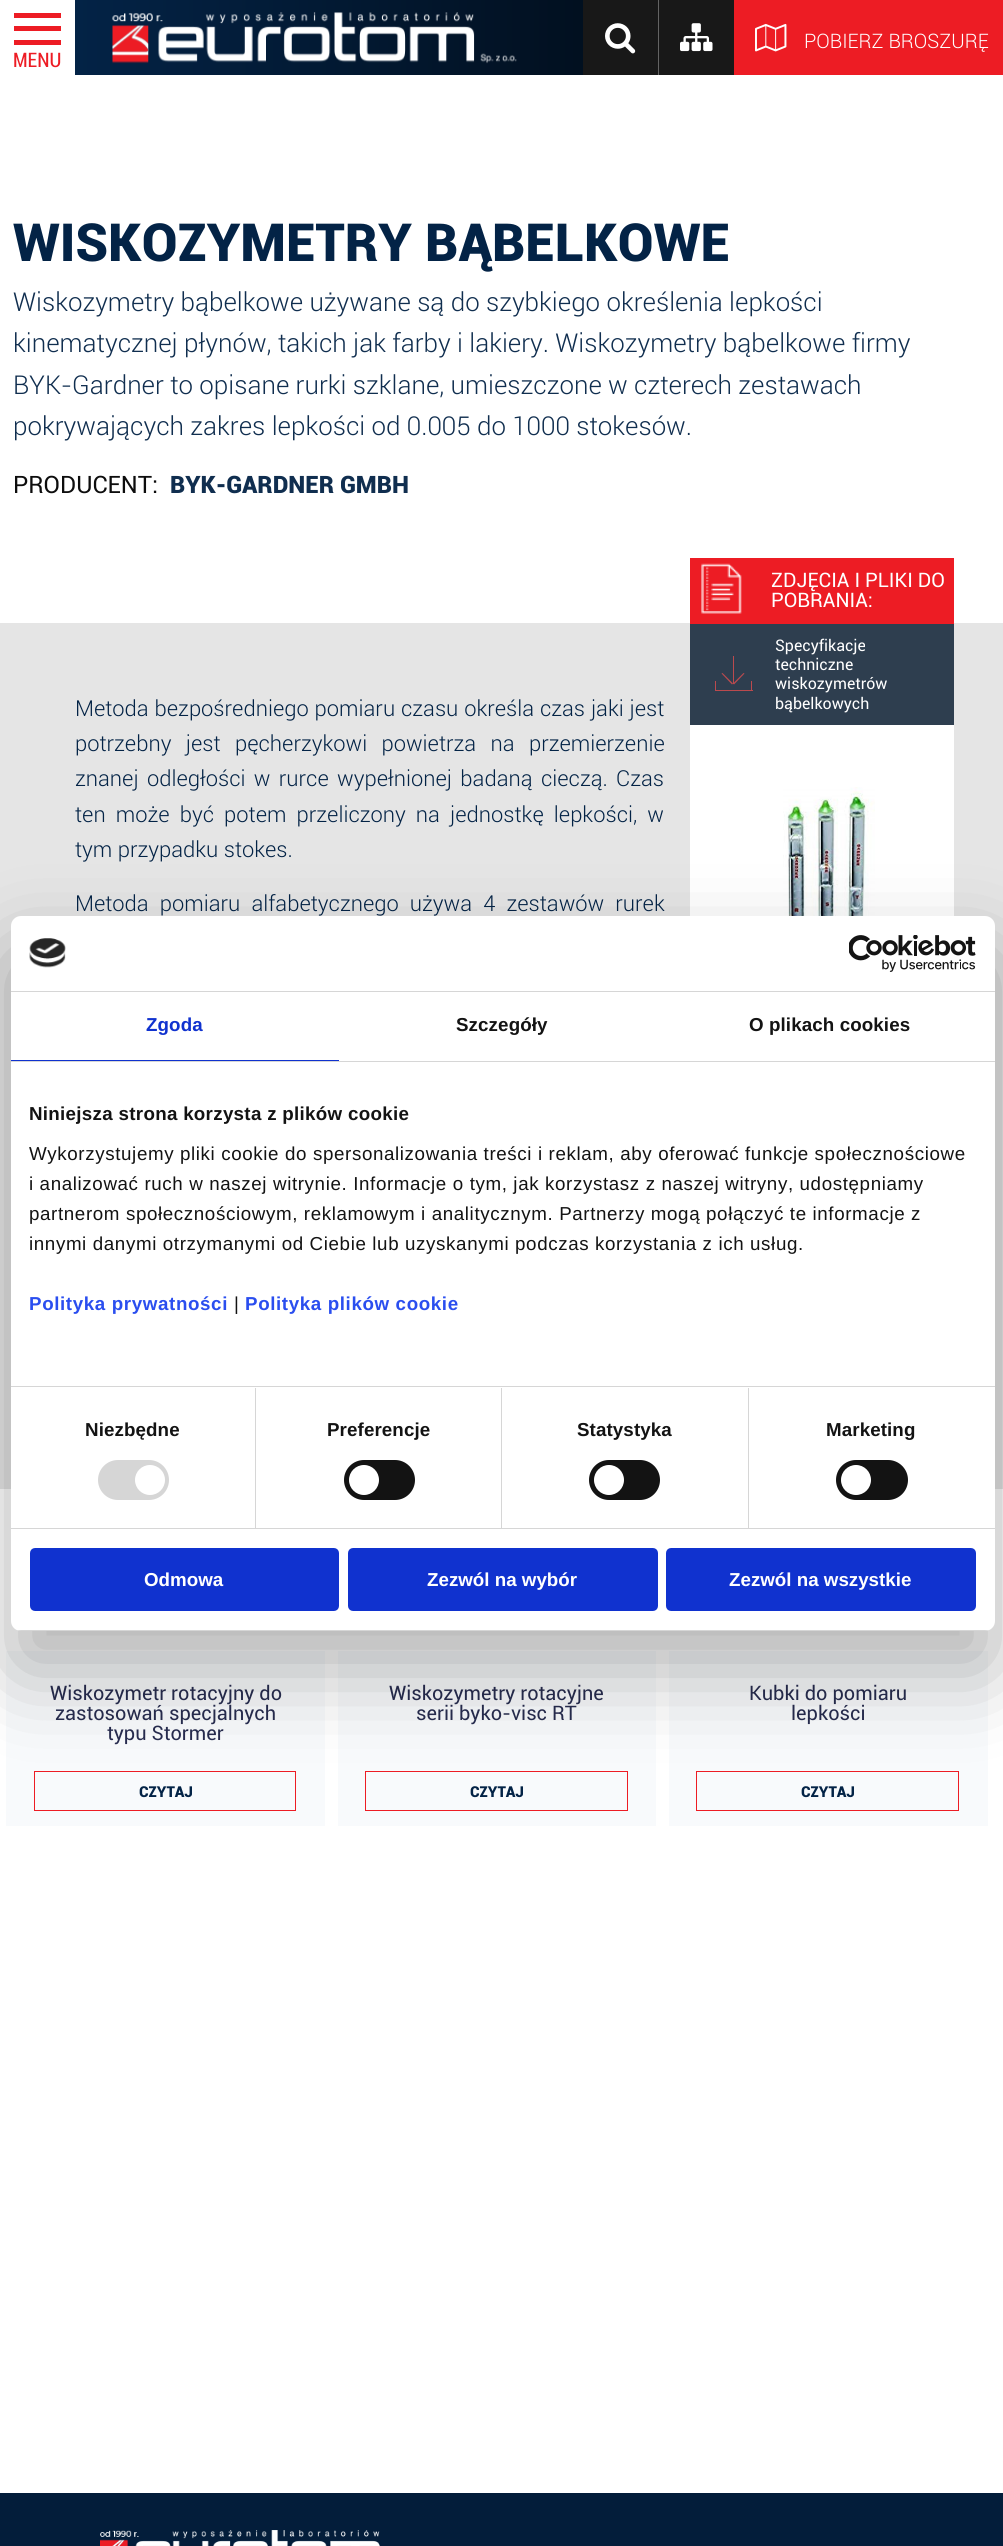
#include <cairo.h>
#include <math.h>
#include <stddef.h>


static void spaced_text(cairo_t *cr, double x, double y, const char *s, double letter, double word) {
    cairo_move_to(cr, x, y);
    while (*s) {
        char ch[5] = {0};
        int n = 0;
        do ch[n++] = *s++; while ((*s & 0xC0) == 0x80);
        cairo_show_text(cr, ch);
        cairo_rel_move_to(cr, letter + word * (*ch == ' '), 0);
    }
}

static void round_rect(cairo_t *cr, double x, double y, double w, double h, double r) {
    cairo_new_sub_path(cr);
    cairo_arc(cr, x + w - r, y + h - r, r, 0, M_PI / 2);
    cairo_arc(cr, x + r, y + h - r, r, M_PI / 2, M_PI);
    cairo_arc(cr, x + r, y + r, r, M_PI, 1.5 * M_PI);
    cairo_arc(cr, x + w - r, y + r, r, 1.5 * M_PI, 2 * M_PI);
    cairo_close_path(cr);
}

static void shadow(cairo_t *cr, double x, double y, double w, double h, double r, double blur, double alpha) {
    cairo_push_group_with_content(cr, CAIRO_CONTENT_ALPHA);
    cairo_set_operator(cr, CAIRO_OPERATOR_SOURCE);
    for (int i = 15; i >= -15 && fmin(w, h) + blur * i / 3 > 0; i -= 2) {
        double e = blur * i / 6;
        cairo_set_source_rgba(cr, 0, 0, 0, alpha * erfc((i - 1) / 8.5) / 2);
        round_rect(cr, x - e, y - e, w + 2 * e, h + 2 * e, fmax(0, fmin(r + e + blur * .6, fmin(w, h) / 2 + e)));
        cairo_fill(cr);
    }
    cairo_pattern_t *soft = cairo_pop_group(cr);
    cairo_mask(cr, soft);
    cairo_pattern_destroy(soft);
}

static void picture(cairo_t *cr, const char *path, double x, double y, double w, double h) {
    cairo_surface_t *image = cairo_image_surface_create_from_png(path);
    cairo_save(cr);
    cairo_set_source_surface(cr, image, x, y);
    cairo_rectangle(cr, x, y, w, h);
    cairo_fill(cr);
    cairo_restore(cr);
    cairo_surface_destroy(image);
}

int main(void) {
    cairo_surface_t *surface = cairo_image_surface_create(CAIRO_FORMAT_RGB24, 1003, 2546);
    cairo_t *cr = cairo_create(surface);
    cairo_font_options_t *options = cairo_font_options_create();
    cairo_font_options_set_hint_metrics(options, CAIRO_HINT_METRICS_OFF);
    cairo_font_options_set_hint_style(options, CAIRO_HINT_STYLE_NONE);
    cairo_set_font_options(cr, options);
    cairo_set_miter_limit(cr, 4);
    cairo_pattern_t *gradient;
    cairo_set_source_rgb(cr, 1, 1, 1);
    cairo_paint(cr);
    gradient = cairo_pattern_create_linear(75, 38, 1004, 37);
    cairo_pattern_add_color_stop_rgba(gradient, 0, 0.012, 0.137, 0.275, 1);
    cairo_pattern_add_color_stop_rgba(gradient, 1, 0, 0, 0, 1);
    cairo_set_source(cr, gradient);
    cairo_pattern_destroy(gradient);
    cairo_rectangle(cr, 75, 0, 508, 75);
    cairo_fill(cr);
    picture(cr, "img1.png", 112, 12, 405, 52);
    cairo_set_source_rgb(cr, 0.094, 0.094, 0.094);
    cairo_rectangle(cr, 583, 0, 75, 75);
    cairo_fill(cr);
    picture(cr, "img2.png", 605, 23, 31, 31);
    cairo_rectangle(cr, 659, 0, 75, 75);
    cairo_fill(cr);
    cairo_set_source_rgb(cr, 0.388, 0.388, 0.388);
    cairo_rectangle(cr, 658, 0, 1, 75);
    cairo_fill(cr);
    picture(cr, "img3.png", 680, 23, 33, 29);
    cairo_set_source_rgb(cr, 0.929, 0.11, 0.141);
    cairo_rectangle(cr, 734, 0, 269, 75);
    cairo_fill(cr);
    picture(cr, "img4.png", 755, 23, 32, 29);
    cairo_select_font_face(cr, "Roboto Light", CAIRO_FONT_SLANT_NORMAL, CAIRO_FONT_WEIGHT_NORMAL);
    cairo_set_font_size(cr, 20);
    cairo_set_source_rgb(cr, 1, 1, 1);
    cairo_move_to(cr, 804, 48);
    cairo_show_text(cr, "POBIERZ BROSZURĘ");
    cairo_set_source_rgb(cr, 0.929, 0.11, 0.141);
    cairo_rectangle(cr, 14, 13, 47, 5);
    cairo_fill(cr);
    cairo_rectangle(cr, 14, 26, 47, 5);
    cairo_fill(cr);
    cairo_rectangle(cr, 14, 40, 47, 5);
    cairo_fill(cr);
    cairo_select_font_face(cr, "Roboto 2", CAIRO_FONT_SLANT_NORMAL, CAIRO_FONT_WEIGHT_NORMAL);
    cairo_move_to(cr, 13, 67);
    cairo_show_text(cr, "MENU");
    cairo_select_font_face(cr, "Roboto Black", CAIRO_FONT_SLANT_NORMAL, CAIRO_FONT_WEIGHT_NORMAL);
    cairo_set_font_size(cr, 52.5);
    cairo_set_source_rgb(cr, 0.012, 0.137, 0.275);
    cairo_move_to(cr, 13, 261);
    cairo_show_text(cr, "WISKOZYMETRY BĄBELKOWE");
    cairo_select_font_face(cr, "Roboto Light", CAIRO_FONT_SLANT_NORMAL, CAIRO_FONT_WEIGHT_NORMAL);
    cairo_set_font_size(cr, 26);
    cairo_set_source_rgb(cr, 0.063, 0.18, 0.31);
    cairo_move_to(cr, 13, 311);
    cairo_show_text(cr, "Wiskozymetry bąbelkowe używane są do szybkiego określenia lepkości");
    cairo_move_to(cr, 13, 352);
    cairo_show_text(cr, "kinematycznej płynów, takich jak farby i lakiery. Wiskozymetry bąbelkowe firmy");
    cairo_move_to(cr, 13, 394);
    cairo_show_text(cr, "BYK-Gardner to opisane rurki szklane, umieszczone w czterech zestawach");
    cairo_move_to(cr, 13, 435);
    cairo_show_text(cr, "pokrywających zakres lepkości od 0.005 do 1000 stokesów.");
    cairo_select_font_face(cr, "Roboto", CAIRO_FONT_SLANT_NORMAL, CAIRO_FONT_WEIGHT_NORMAL);
    cairo_set_font_size(cr, 24);
    cairo_set_source_rgb(cr, 0.051, 0.051, 0.051);
    cairo_move_to(cr, 13, 493);
    cairo_show_text(cr, "PRODUCENT:");
    cairo_select_font_face(cr, "Roboto Black", CAIRO_FONT_SLANT_NORMAL, CAIRO_FONT_WEIGHT_NORMAL);
    cairo_set_source_rgb(cr, 0.063, 0.18, 0.31);
    cairo_move_to(cr, 170, 493);
    cairo_show_text(cr, "BYK-GARDNER GMBH");
    cairo_set_source_rgb(cr, 0.898, 0.898, 0.898);
    cairo_rectangle(cr, 0, 623, 1003, 866);
    cairo_fill(cr);
    cairo_set_source_rgb(cr, 0.929, 0.11, 0.141);
    cairo_rectangle(cr, 690, 558, 264, 66);
    cairo_fill(cr);
    picture(cr, "img5.png", 701, 563, 41, 51);
    cairo_select_font_face(cr, "Roboto", CAIRO_FONT_SLANT_NORMAL, CAIRO_FONT_WEIGHT_NORMAL);
    cairo_set_font_size(cr, 20);
    cairo_set_source_rgb(cr, 1, 1, 1);
    cairo_move_to(cr, 771, 587);
    cairo_show_text(cr, "ZDJĘCIA I PLIKI DO");
    cairo_move_to(cr, 771, 607);
    cairo_show_text(cr, "POBRANIA:");
    cairo_set_source_rgb(cr, 0.18, 0.243, 0.31);
    cairo_rectangle(cr, 690, 624, 264, 101);
    cairo_fill(cr);
    cairo_set_font_size(cr, 16);
    cairo_set_source_rgb(cr, 1, 1, 1);
    cairo_move_to(cr, 775, 651);
    cairo_show_text(cr, "Specyfikacje");
    cairo_set_source_rgb(cr, 0.733, 0.29, 0.306);
    cairo_rectangle(cr, 733, 656, 1, 28);
    cairo_fill(cr);
    cairo_new_path(cr);
    cairo_move_to(cr, 722.5, 673);
    cairo_line_to(cr, 733, 683.5);
    cairo_line_to(cr, 732, 684.5);
    cairo_line_to(cr, 721.5, 673.5);
    cairo_close_path(cr);
    cairo_move_to(cr, 733, 683.5);
    cairo_line_to(cr, 743.5, 673);
    cairo_line_to(cr, 744.5, 673.5);
    cairo_line_to(cr, 734, 684.5);
    cairo_close_path(cr);
    cairo_fill(cr);
    cairo_rectangle(cr, 751, 681, 1, 10);
    cairo_fill(cr);
    cairo_rectangle(cr, 715, 690, 38, 1);
    cairo_fill(cr);
    cairo_rectangle(cr, 715, 681, 1, 10);
    cairo_fill(cr);
    cairo_set_source_rgb(cr, 1, 1, 1);
    cairo_move_to(cr, 775, 670);
    cairo_show_text(cr, "techniczne");
    cairo_move_to(cr, 775, 689);
    cairo_show_text(cr, "wiskozymetrów");
    cairo_move_to(cr, 775, 709);
    cairo_show_text(cr, "bąbelkowych");
    cairo_rectangle(cr, 690, 725, 264, 191);
    cairo_fill(cr);
    picture(cr, "img6.png", 783, 787, 92, 129);
    cairo_select_font_face(cr, "Roboto Light", CAIRO_FONT_SLANT_NORMAL, CAIRO_FONT_WEIGHT_NORMAL);
    cairo_set_font_size(cr, 22);
    cairo_set_source_rgb(cr, 0.012, 0.137, 0.275);
    spaced_text(cr, 75, 716, "Metoda bezpośredniego pomiaru czasu określa czas jaki jest", 0, 0.5);
    spaced_text(cr, 75, 751, "potrzebny jest pęcherzykowi powietrza na przemierzenie", 0, 9);
    spaced_text(cr, 75, 786, "znanej odległości w rurce wypełnionej badaną cieczą. Czas", 0, 3);
    spaced_text(cr, 75, 822, "ten może być potem przeliczony na jednostkę lepkości, w", 0, 4.75);
    cairo_move_to(cr, 75, 857);
    cairo_show_text(cr, "tym przypadku stokes.");
    spaced_text(cr, 75, 911, "Metoda pomiaru alfabetycznego używa 4 zestawów rurek", 0, 5.75);
    cairo_set_source_rgb(cr, 0.969, 0.98, 0.988);
    cairo_rectangle(cr, 6, 1651, 319, 175);
    cairo_fill(cr);
    cairo_select_font_face(cr, "Roboto", CAIRO_FONT_SLANT_NORMAL, CAIRO_FONT_WEIGHT_NORMAL);
    cairo_set_font_size(cr, 20);
    cairo_set_source_rgb(cr, 0.153, 0.173, 0.31);
    cairo_move_to(cr, 50, 1700);
    cairo_show_text(cr, "Wiskozymetr rotacyjny do");
    cairo_move_to(cr, 55, 1720);
    cairo_show_text(cr, "zastosowań specjalnych");
    cairo_move_to(cr, 107, 1740);
    cairo_show_text(cr, "typu Stormer");
    cairo_rectangle(cr, 34.5, 1771.5, 261, 39);
    cairo_set_source_rgb(cr, 0.929, 0.11, 0.141);
    cairo_set_line_width(cr, 1);
    cairo_stroke(cr);
    cairo_select_font_face(cr, "Roboto Black", CAIRO_FONT_SLANT_NORMAL, CAIRO_FONT_WEIGHT_NORMAL);
    cairo_set_font_size(cr, 15);
    cairo_set_source_rgb(cr, 0.012, 0.137, 0.275);
    cairo_move_to(cr, 139, 1797);
    cairo_show_text(cr, "CZYTAJ");
    cairo_set_source_rgb(cr, 0.969, 0.98, 0.988);
    cairo_rectangle(cr, 338, 1651, 318, 175);
    cairo_fill(cr);
    cairo_select_font_face(cr, "Roboto", CAIRO_FONT_SLANT_NORMAL, CAIRO_FONT_WEIGHT_NORMAL);
    cairo_set_font_size(cr, 20);
    cairo_set_source_rgb(cr, 0.153, 0.173, 0.31);
    cairo_move_to(cr, 389, 1700);
    cairo_show_text(cr, "Wiskozymetry rotacyjne");
    cairo_move_to(cr, 416, 1720);
    cairo_show_text(cr, "serii byko-visc RT");
    cairo_rectangle(cr, 365.5, 1771.5, 262, 39);
    cairo_set_source_rgb(cr, 0.929, 0.11, 0.141);
    cairo_stroke(cr);
    cairo_select_font_face(cr, "Roboto Black", CAIRO_FONT_SLANT_NORMAL, CAIRO_FONT_WEIGHT_NORMAL);
    cairo_set_font_size(cr, 15);
    cairo_set_source_rgb(cr, 0.012, 0.137, 0.275);
    cairo_move_to(cr, 470, 1797);
    cairo_show_text(cr, "CZYTAJ");
    cairo_set_source_rgb(cr, 0.969, 0.98, 0.988);
    cairo_rectangle(cr, 669, 1651, 319, 175);
    cairo_fill(cr);
    cairo_select_font_face(cr, "Roboto", CAIRO_FONT_SLANT_NORMAL, CAIRO_FONT_WEIGHT_NORMAL);
    cairo_set_font_size(cr, 20);
    cairo_set_source_rgb(cr, 0.153, 0.173, 0.31);
    cairo_move_to(cr, 749, 1700);
    cairo_show_text(cr, "Kubki do pomiaru");
    cairo_move_to(cr, 791, 1720);
    cairo_show_text(cr, "lepkości");
    cairo_rectangle(cr, 696.5, 1771.5, 262, 39);
    cairo_set_source_rgb(cr, 0.929, 0.11, 0.141);
    cairo_stroke(cr);
    cairo_select_font_face(cr, "Roboto Black", CAIRO_FONT_SLANT_NORMAL, CAIRO_FONT_WEIGHT_NORMAL);
    cairo_set_font_size(cr, 15);
    cairo_set_source_rgb(cr, 0.012, 0.137, 0.275);
    cairo_move_to(cr, 801, 1797);
    cairo_show_text(cr, "CZYTAJ");
    cairo_set_source_rgb(cr, 0, 0, 0);
    shadow(cr, 11, 956, 984, 715, 10, 42.5, 0.3);
    cairo_set_source_rgb(cr, 1, 1, 1);
    round_rect(cr, 11, 916, 984, 715, 10);
    cairo_fill(cr);
    cairo_set_source_rgb(cr, 0.839, 0.839, 0.839);
    cairo_rectangle(cr, 11, 991, 984, 1);
    cairo_fill(cr);
    picture(cr, "img7.png", 29, 938, 37, 30);
    picture(cr, "img8.png", 849, 935, 127, 37);
    cairo_rectangle(cr, 11, 1061, 984, 1);
    cairo_fill(cr);
    cairo_set_source_rgb(cr, 0.063, 0.196, 0.812);
    cairo_rectangle(cr, 11, 1060, 328, 1);
    cairo_fill(cr);
    cairo_select_font_face(cr, "Liberation Sans", CAIRO_FONT_SLANT_NORMAL, CAIRO_FONT_WEIGHT_BOLD);
    cairo_set_font_size(cr, 18.75);
    spaced_text(cr, 146, 1031, "Zgoda", 0.1, 0);
    cairo_set_source_rgb(cr, 0.078, 0.078, 0.078);
    spaced_text(cr, 456, 1031, "Szczegóły", 0.1, 0);
    spaced_text(cr, 749, 1031, "O plikach cookies", 0.1, 0);
    cairo_set_source_rgb(cr, 0.839, 0.839, 0.839);
    cairo_rectangle(cr, 11, 1386, 984, 1);
    cairo_fill(cr);
    cairo_set_source_rgb(cr, 0.078, 0.078, 0.078);
    spaced_text(cr, 29, 1120, "Niniejsza strona korzysta z plików cookie", 0.3, 0);
    cairo_select_font_face(cr, "Liberation Sans", CAIRO_FONT_SLANT_NORMAL, CAIRO_FONT_WEIGHT_NORMAL);
    spaced_text(cr, 29, 1160, "Wykorzystujemy pliki cookie do spersonalizowania treści i reklam, aby oferować funkcje społecznościowe", 0.62, 0);
    spaced_text(cr, 29, 1190, "i analizować ruch w naszej witrynie. Informacje o tym, jak korzystasz z naszej witryny, udostępniamy", 0.62, 0);
    spaced_text(cr, 29, 1220, "partnerom społecznościowym, reklamowym i analitycznym. Partnerzy mogą połączyć te informacje z", 0.62, 0);
    spaced_text(cr, 29, 1250, "innymi danymi otrzymanymi od Ciebie lub uzyskanymi podczas korzystania z ich usług.", 0.62, 0);
    cairo_select_font_face(cr, "Liberation Sans", CAIRO_FONT_SLANT_NORMAL, CAIRO_FONT_WEIGHT_BOLD);
    cairo_set_source_rgb(cr, 0.165, 0.306, 0.937);
    spaced_text(cr, 29, 1310, "Polityka prywatności", 0.62, 0);
    cairo_select_font_face(cr, "Liberation Sans", CAIRO_FONT_SLANT_NORMAL, CAIRO_FONT_WEIGHT_NORMAL);
    cairo_set_source_rgb(cr, 0.078, 0.078, 0.078);
    spaced_text(cr, 234, 1310, "|", 0.62, 0);
    cairo_select_font_face(cr, "Liberation Sans", CAIRO_FONT_SLANT_NORMAL, CAIRO_FONT_WEIGHT_BOLD);
    cairo_set_source_rgb(cr, 0.165, 0.306, 0.937);
    spaced_text(cr, 245, 1310, "Polityka plików cookie", 0.62, 0);
    cairo_set_source_rgb(cr, 0.839, 0.839, 0.839);
    cairo_rectangle(cr, 11, 1528, 984, 1);
    cairo_fill(cr);
    cairo_rectangle(cr, 255, 1388, 1, 140);
    cairo_fill(cr);
    cairo_set_source_rgb(cr, 0.078, 0.078, 0.078);
    spaced_text(cr, 85, 1436, "Niezbędne", 0.1, 0);
    cairo_set_source_rgb(cr, 0.839, 0.839, 0.839);
    round_rect(cr, 98, 1460, 71, 40, 20);
    cairo_fill(cr);
    cairo_set_source_rgb(cr, 1, 1, 1);
    cairo_arc(cr, 150, 1480, 15, 0, 2 * M_PI);
    cairo_fill(cr);
    cairo_set_source_rgb(cr, 0.839, 0.839, 0.839);
    cairo_rectangle(cr, 501, 1388, 1, 140);
    cairo_fill(cr);
    cairo_set_source_rgb(cr, 0.078, 0.078, 0.078);
    spaced_text(cr, 327, 1436, "Preferencje", 0.1, 0);
    round_rect(cr, 344, 1460, 71, 40, 20);
    cairo_fill(cr);
    cairo_set_source_rgb(cr, 1, 1, 1);
    cairo_arc(cr, 364, 1480, 15, 0, 2 * M_PI);
    cairo_fill(cr);
    cairo_set_source_rgb(cr, 0.839, 0.839, 0.839);
    cairo_rectangle(cr, 748, 1388, 1, 140);
    cairo_fill(cr);
    cairo_set_source_rgb(cr, 0.078, 0.078, 0.078);
    spaced_text(cr, 577, 1436, "Statystyka", 0.1, 0);
    round_rect(cr, 589, 1460, 71, 40, 20);
    cairo_fill(cr);
    cairo_set_source_rgb(cr, 1, 1, 1);
    cairo_arc(cr, 609, 1480, 15, 0, 2 * M_PI);
    cairo_fill(cr);
    cairo_set_source_rgb(cr, 0.078, 0.078, 0.078);
    spaced_text(cr, 826, 1436, "Marketing", 0.1, 0);
    round_rect(cr, 836, 1460, 72, 40, 20);
    cairo_fill(cr);
    cairo_set_source_rgb(cr, 1, 1, 1);
    cairo_arc(cr, 856, 1480, 15, 0, 2 * M_PI);
    cairo_fill(cr);
    cairo_save(cr);
    round_rect(cr, 11, 916, 984, 715, 10);
    cairo_clip(cr);
    cairo_set_source_rgb(cr, 0.839, 0.839, 0.839);
    cairo_rectangle(cr, 11, 1630, 984, 1);
    cairo_fill(cr);
    cairo_restore(cr);
    cairo_set_source_rgb(cr, 0.063, 0.196, 0.812);
    round_rect(cr, 31.5, 1549.5, 306, 60, 3.5);
    cairo_fill_preserve(cr);
    cairo_set_line_width(cr, 3);
    cairo_stroke(cr);
    cairo_set_source_rgb(cr, 1, 1, 1);
    cairo_move_to(cr, 144, 1586);
    cairo_show_text(cr, "Odmowa");
    cairo_set_source_rgb(cr, 0.063, 0.196, 0.812);
    round_rect(cr, 349.5, 1549.5, 307, 60, 3.5);
    cairo_fill_preserve(cr);
    cairo_stroke(cr);
    cairo_set_source_rgb(cr, 1, 1, 1);
    cairo_move_to(cr, 427, 1586);
    cairo_show_text(cr, "Zezwól na wybór");
    cairo_set_source_rgb(cr, 0.063, 0.196, 0.812);
    round_rect(cr, 667.5, 1549.5, 307, 60, 3.5);
    cairo_fill_preserve(cr);
    cairo_stroke(cr);
    cairo_set_source_rgb(cr, 1, 1, 1);
    cairo_move_to(cr, 729, 1586);
    cairo_show_text(cr, "Zezwól na wszystkie");
    cairo_set_source_rgb(cr, 0.012, 0.114, 0.227);
    cairo_rectangle(cr, 0, 2493, 1003, 53);
    cairo_fill(cr);
    picture(cr, "img9.png", 100, 2530, 280, 16);
    cairo_surface_write_to_png(surface, "page.png");
    cairo_font_options_destroy(options);
    cairo_destroy(cr);
    cairo_surface_destroy(surface);
    return 0;
}
